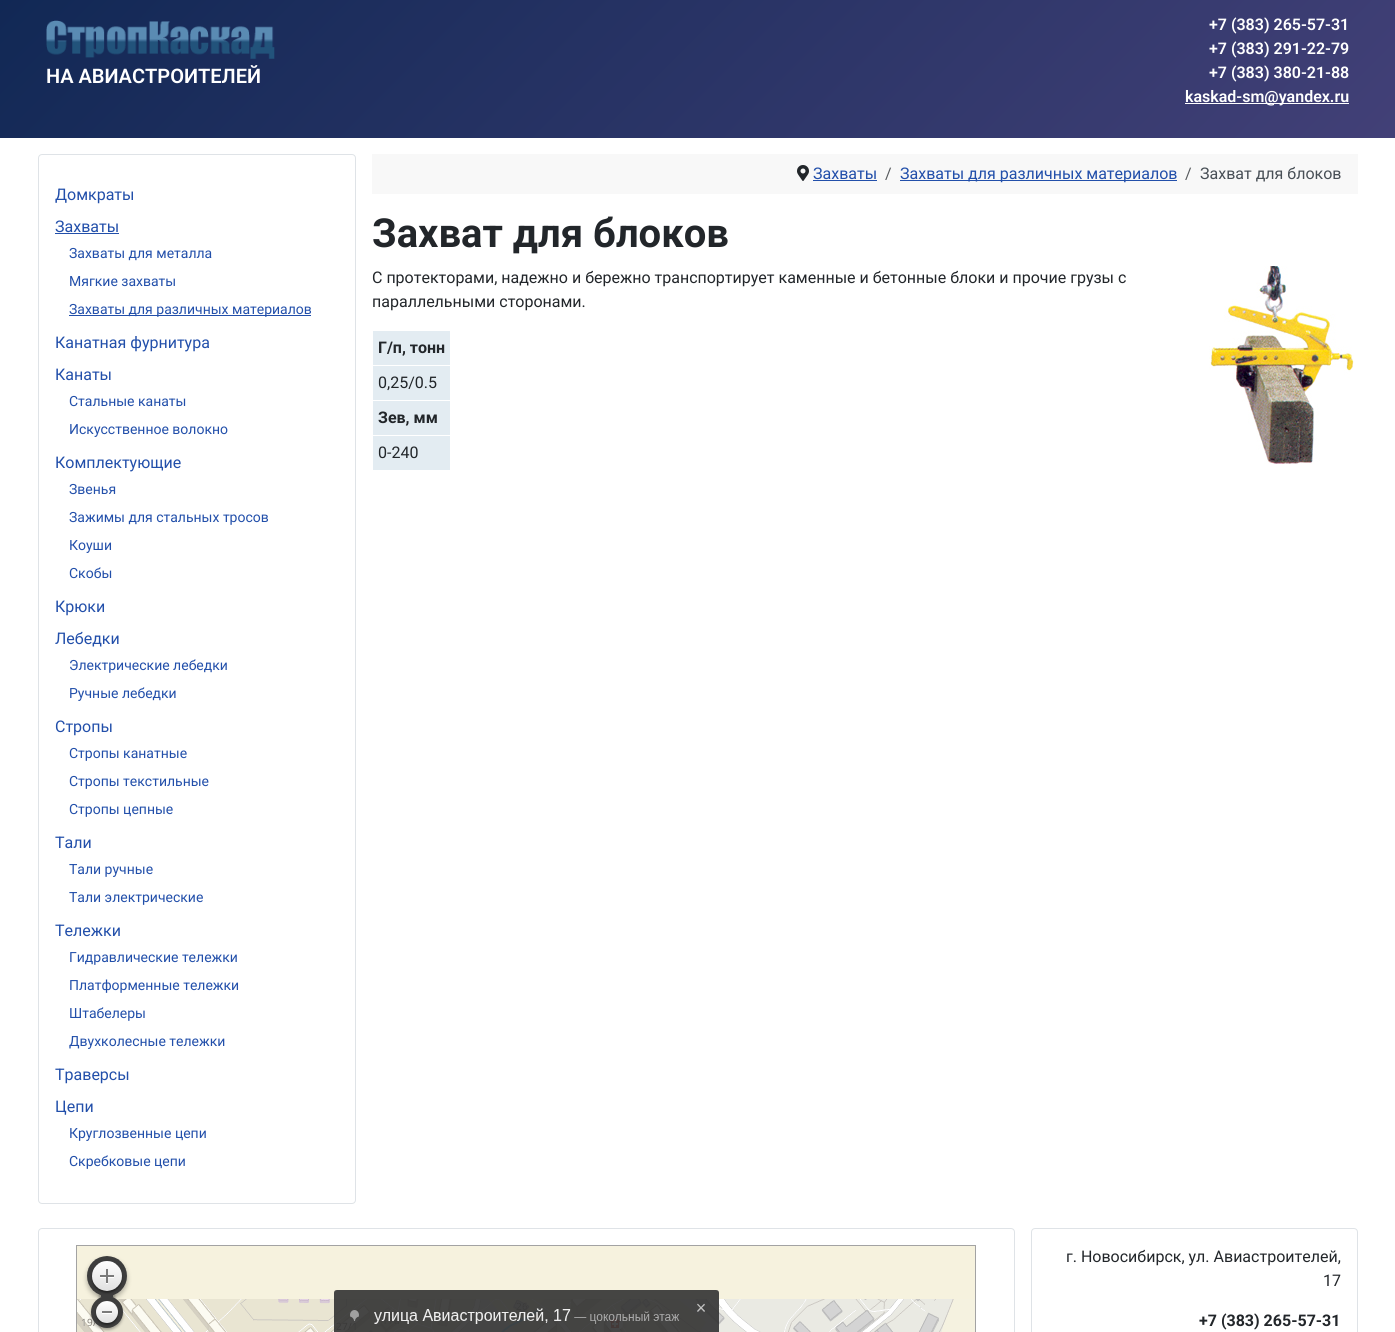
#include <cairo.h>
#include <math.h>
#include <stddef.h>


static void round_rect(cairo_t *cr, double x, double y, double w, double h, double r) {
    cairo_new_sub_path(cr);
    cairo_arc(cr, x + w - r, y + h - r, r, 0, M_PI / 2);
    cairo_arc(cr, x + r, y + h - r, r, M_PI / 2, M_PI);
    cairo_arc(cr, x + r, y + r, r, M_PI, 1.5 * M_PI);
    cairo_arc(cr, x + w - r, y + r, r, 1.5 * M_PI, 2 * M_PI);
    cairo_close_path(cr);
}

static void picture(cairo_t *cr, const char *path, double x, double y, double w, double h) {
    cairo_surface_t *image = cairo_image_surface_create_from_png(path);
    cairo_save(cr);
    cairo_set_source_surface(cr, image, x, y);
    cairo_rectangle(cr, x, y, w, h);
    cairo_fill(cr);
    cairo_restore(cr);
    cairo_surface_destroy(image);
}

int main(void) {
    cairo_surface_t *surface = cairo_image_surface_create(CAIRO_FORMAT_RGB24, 1395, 1332);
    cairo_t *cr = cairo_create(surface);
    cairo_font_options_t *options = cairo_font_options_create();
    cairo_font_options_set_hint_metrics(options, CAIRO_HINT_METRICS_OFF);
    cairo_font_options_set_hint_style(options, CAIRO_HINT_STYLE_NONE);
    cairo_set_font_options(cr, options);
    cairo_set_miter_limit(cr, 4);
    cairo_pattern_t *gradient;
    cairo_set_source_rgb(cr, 1, 1, 1);
    cairo_paint(cr);
    gradient = cairo_pattern_create_linear(314, -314, 1081, 452);
    cairo_pattern_add_color_stop_rgba(gradient, 0, 0.067, 0.157, 0.333, 1);
    cairo_pattern_add_color_stop_rgba(gradient, 1, 0.259, 0.251, 0.467, 1);
    cairo_set_source(cr, gradient);
    cairo_pattern_destroy(gradient);
    cairo_rectangle(cr, 0, 0, 1395, 138);
    cairo_fill(cr);
    picture(cr, "img1.png", 46, 20, 229, 39);
    cairo_select_font_face(cr, "Roboto SemiBold", CAIRO_FONT_SLANT_NORMAL, CAIRO_FONT_WEIGHT_NORMAL);
    cairo_set_font_size(cr, 20);
    cairo_set_source_rgb(cr, 1, 1, 1);
    cairo_move_to(cr, 46, 83);
    cairo_show_text(cr, "НА АВИАСТРОИТЕЛЕЙ");
    cairo_set_font_size(cr, 16);
    cairo_move_to(cr, 1209, 30);
    cairo_show_text(cr, "+7 (383) 265-57-31");
    cairo_move_to(cr, 1209, 54);
    cairo_show_text(cr, "+7 (383) 291-22-79");
    cairo_move_to(cr, 1209, 78);
    cairo_show_text(cr, "+7 (383) 380-21-88");
    cairo_rectangle(cr, 1185, 103, 164, 1);
    cairo_fill(cr);
    cairo_move_to(cr, 1185, 102);
    cairo_show_text(cr, "kaskad-sm@yandex.ru");
    round_rect(cr, 38.5, 154.5, 317, 1049, 3.5);
    cairo_set_source_rgb(cr, 0.875, 0.89, 0.906);
    cairo_set_line_width(cr, 1);
    cairo_stroke(cr);
    cairo_select_font_face(cr, "Roboto", CAIRO_FONT_SLANT_NORMAL, CAIRO_FONT_WEIGHT_NORMAL);
    cairo_set_source_rgb(cr, 0.133, 0.31, 0.667);
    cairo_move_to(cr, 55, 200);
    cairo_show_text(cr, "Домкраты");
    cairo_move_to(cr, 55, 232);
    cairo_show_text(cr, "Захваты");
    cairo_rectangle(cr, 55, 233, 64, 1);
    cairo_fill(cr);
    cairo_set_font_size(cr, 14);
    cairo_move_to(cr, 69, 258);
    cairo_show_text(cr, "Захваты для металла");
    cairo_move_to(cr, 69, 286);
    cairo_show_text(cr, "Мягкие захваты");
    cairo_rectangle(cr, 69, 315, 242, 1);
    cairo_fill(cr);
    cairo_move_to(cr, 69, 314);
    cairo_show_text(cr, "Захваты для различных материалов");
    cairo_set_font_size(cr, 16);
    cairo_move_to(cr, 55, 348);
    cairo_show_text(cr, "Канатная фурнитура");
    cairo_move_to(cr, 55, 380);
    cairo_show_text(cr, "Канаты");
    cairo_set_font_size(cr, 14);
    cairo_move_to(cr, 69, 406);
    cairo_show_text(cr, "Стальные канаты");
    cairo_move_to(cr, 69, 434);
    cairo_show_text(cr, "Искусственное волокно");
    cairo_set_font_size(cr, 16);
    cairo_move_to(cr, 55, 468);
    cairo_show_text(cr, "Комплектующие");
    cairo_set_font_size(cr, 14);
    cairo_move_to(cr, 69, 494);
    cairo_show_text(cr, "Звенья");
    cairo_move_to(cr, 69, 522);
    cairo_show_text(cr, "Зажимы для стальных тросов");
    cairo_move_to(cr, 69, 550);
    cairo_show_text(cr, "Коуши");
    cairo_move_to(cr, 69, 578);
    cairo_show_text(cr, "Скобы");
    cairo_set_font_size(cr, 16);
    cairo_move_to(cr, 55, 612);
    cairo_show_text(cr, "Крюки");
    cairo_move_to(cr, 55, 644);
    cairo_show_text(cr, "Лебедки");
    cairo_set_font_size(cr, 14);
    cairo_move_to(cr, 69, 670);
    cairo_show_text(cr, "Электрические лебедки");
    cairo_move_to(cr, 69, 698);
    cairo_show_text(cr, "Ручные лебедки");
    cairo_set_font_size(cr, 16);
    cairo_move_to(cr, 55, 732);
    cairo_show_text(cr, "Стропы");
    cairo_set_font_size(cr, 14);
    cairo_move_to(cr, 69, 758);
    cairo_show_text(cr, "Стропы канатные");
    cairo_move_to(cr, 69, 786);
    cairo_show_text(cr, "Стропы текстильные");
    cairo_move_to(cr, 69, 814);
    cairo_show_text(cr, "Стропы цепные");
    cairo_set_font_size(cr, 16);
    cairo_move_to(cr, 55, 848);
    cairo_show_text(cr, "Тали");
    cairo_set_font_size(cr, 14);
    cairo_move_to(cr, 69, 874);
    cairo_show_text(cr, "Тали ручные");
    cairo_move_to(cr, 69, 902);
    cairo_show_text(cr, "Тали электрические");
    cairo_set_font_size(cr, 16);
    cairo_move_to(cr, 55, 936);
    cairo_show_text(cr, "Тележки");
    cairo_set_font_size(cr, 14);
    cairo_move_to(cr, 69, 962);
    cairo_show_text(cr, "Гидравлические тележки");
    cairo_move_to(cr, 69, 990);
    cairo_show_text(cr, "Платформенные тележки");
    cairo_move_to(cr, 69, 1018);
    cairo_show_text(cr, "Штабелеры");
    cairo_move_to(cr, 69, 1046);
    cairo_show_text(cr, "Двухколесные тележки");
    cairo_set_font_size(cr, 16);
    cairo_move_to(cr, 55, 1080);
    cairo_show_text(cr, "Траверсы");
    cairo_move_to(cr, 55, 1112);
    cairo_show_text(cr, "Цепи");
    cairo_set_font_size(cr, 14);
    cairo_move_to(cr, 69, 1138);
    cairo_show_text(cr, "Круглозвенные цепи");
    cairo_move_to(cr, 69, 1166);
    cairo_show_text(cr, "Скребковые цепи");
    cairo_set_source_rgb(cr, 0.969, 0.969, 0.969);
    cairo_rectangle(cr, 372, 154, 986, 40);
    cairo_fill(cr);
    picture(cr, "img2.png", 797, 165, 12, 16);
    cairo_set_font_size(cr, 16);
    cairo_set_source_rgb(cr, 0.133, 0.31, 0.667);
    cairo_move_to(cr, 813, 179);
    cairo_show_text(cr, "Захваты");
    cairo_rectangle(cr, 813, 180, 64, 1);
    cairo_fill(cr);
    cairo_set_source_rgb(cr, 0.341, 0.353, 0.365);
    cairo_move_to(cr, 885, 179);
    cairo_show_text(cr, "/");
    cairo_set_source_rgb(cr, 0.133, 0.31, 0.667);
    cairo_rectangle(cr, 900, 180, 277, 1);
    cairo_fill(cr);
    cairo_move_to(cr, 900, 179);
    cairo_show_text(cr, "Захваты для различных материалов");
    cairo_set_source_rgb(cr, 0.341, 0.353, 0.365);
    cairo_move_to(cr, 1185, 179);
    cairo_show_text(cr, "/");
    cairo_set_source_rgb(cr, 0.282, 0.31, 0.337);
    cairo_move_to(cr, 1200, 179);
    cairo_show_text(cr, "Захват для блоков");
    cairo_select_font_face(cr, "Roboto", CAIRO_FONT_SLANT_NORMAL, CAIRO_FONT_WEIGHT_BOLD);
    cairo_set_font_size(cr, 40);
    cairo_set_source_rgb(cr, 0.133, 0.149, 0.165);
    cairo_move_to(cr, 372, 247);
    cairo_show_text(cr, "Захват для блоков");
    cairo_select_font_face(cr, "Roboto", CAIRO_FONT_SLANT_NORMAL, CAIRO_FONT_WEIGHT_NORMAL);
    cairo_set_font_size(cr, 16);
    cairo_move_to(cr, 372, 283);
    cairo_show_text(cr, "С протекторами, надежно и бережно транспортирует каменные и бетонные блоки и прочие грузы с");
    cairo_move_to(cr, 372, 307);
    cairo_show_text(cr, "параллельными сторонами.");
    cairo_set_source_rgb(cr, 0.89, 0.922, 0.949);
    cairo_rectangle(cr, 373, 331, 77, 139);
    cairo_fill(cr);
    cairo_select_font_face(cr, "Roboto", CAIRO_FONT_SLANT_NORMAL, CAIRO_FONT_WEIGHT_BOLD);
    cairo_set_source_rgb(cr, 0.133, 0.149, 0.165);
    cairo_move_to(cr, 378, 353);
    cairo_show_text(cr, "Г/п, тонн");
    cairo_set_source_rgb(cr, 1, 1, 1);
    cairo_rectangle(cr, 372, 365, 79, 1);
    cairo_fill(cr);
    cairo_select_font_face(cr, "Roboto", CAIRO_FONT_SLANT_NORMAL, CAIRO_FONT_WEIGHT_NORMAL);
    cairo_set_source_rgb(cr, 0.133, 0.149, 0.165);
    cairo_move_to(cr, 378, 388);
    cairo_show_text(cr, "0,25/0.5");
    cairo_set_source_rgb(cr, 1, 1, 1);
    cairo_rectangle(cr, 372, 400, 79, 1);
    cairo_fill(cr);
    cairo_select_font_face(cr, "Roboto", CAIRO_FONT_SLANT_NORMAL, CAIRO_FONT_WEIGHT_BOLD);
    cairo_set_source_rgb(cr, 0.133, 0.149, 0.165);
    cairo_move_to(cr, 378, 423);
    cairo_show_text(cr, "Зев, мм");
    cairo_set_source_rgb(cr, 1, 1, 1);
    cairo_rectangle(cr, 372, 435, 79, 1);
    cairo_fill(cr);
    cairo_select_font_face(cr, "Roboto", CAIRO_FONT_SLANT_NORMAL, CAIRO_FONT_WEIGHT_NORMAL);
    cairo_set_source_rgb(cr, 0.133, 0.149, 0.165);
    cairo_move_to(cr, 378, 458);
    cairo_show_text(cr, "0-240");
    picture(cr, "img3.png", 1209, 266, 145, 198);
    round_rect(cr, 38.5, 1228.5, 976, 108, 3.5);
    cairo_set_source_rgb(cr, 0.875, 0.89, 0.906);
    cairo_stroke(cr);
    cairo_rectangle(cr, 76.5, 1245.5, 899, 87);
    cairo_set_source_rgb(cr, 0.639, 0.639, 0.639);
    cairo_stroke(cr);
    picture(cr, "img4.png", 77, 1246, 898, 86);
    round_rect(cr, 1031.5, 1228.5, 326, 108, 3.5);
    cairo_set_source_rgb(cr, 0.875, 0.89, 0.906);
    cairo_stroke(cr);
    cairo_set_source_rgb(cr, 0.133, 0.149, 0.165);
    cairo_move_to(cr, 1066, 1262);
    cairo_show_text(cr, "г. Новосибирск, ул. Авиастроителей,");
    cairo_move_to(cr, 1323, 1286);
    cairo_show_text(cr, "17");
    cairo_select_font_face(cr, "Roboto", CAIRO_FONT_SLANT_NORMAL, CAIRO_FONT_WEIGHT_BOLD);
    cairo_move_to(cr, 1199, 1326);
    cairo_show_text(cr, "+7 (383) 265-57-31");
    cairo_surface_write_to_png(surface, "page.png");
    cairo_font_options_destroy(options);
    cairo_destroy(cr);
    cairo_surface_destroy(surface);
    return 0;
}
